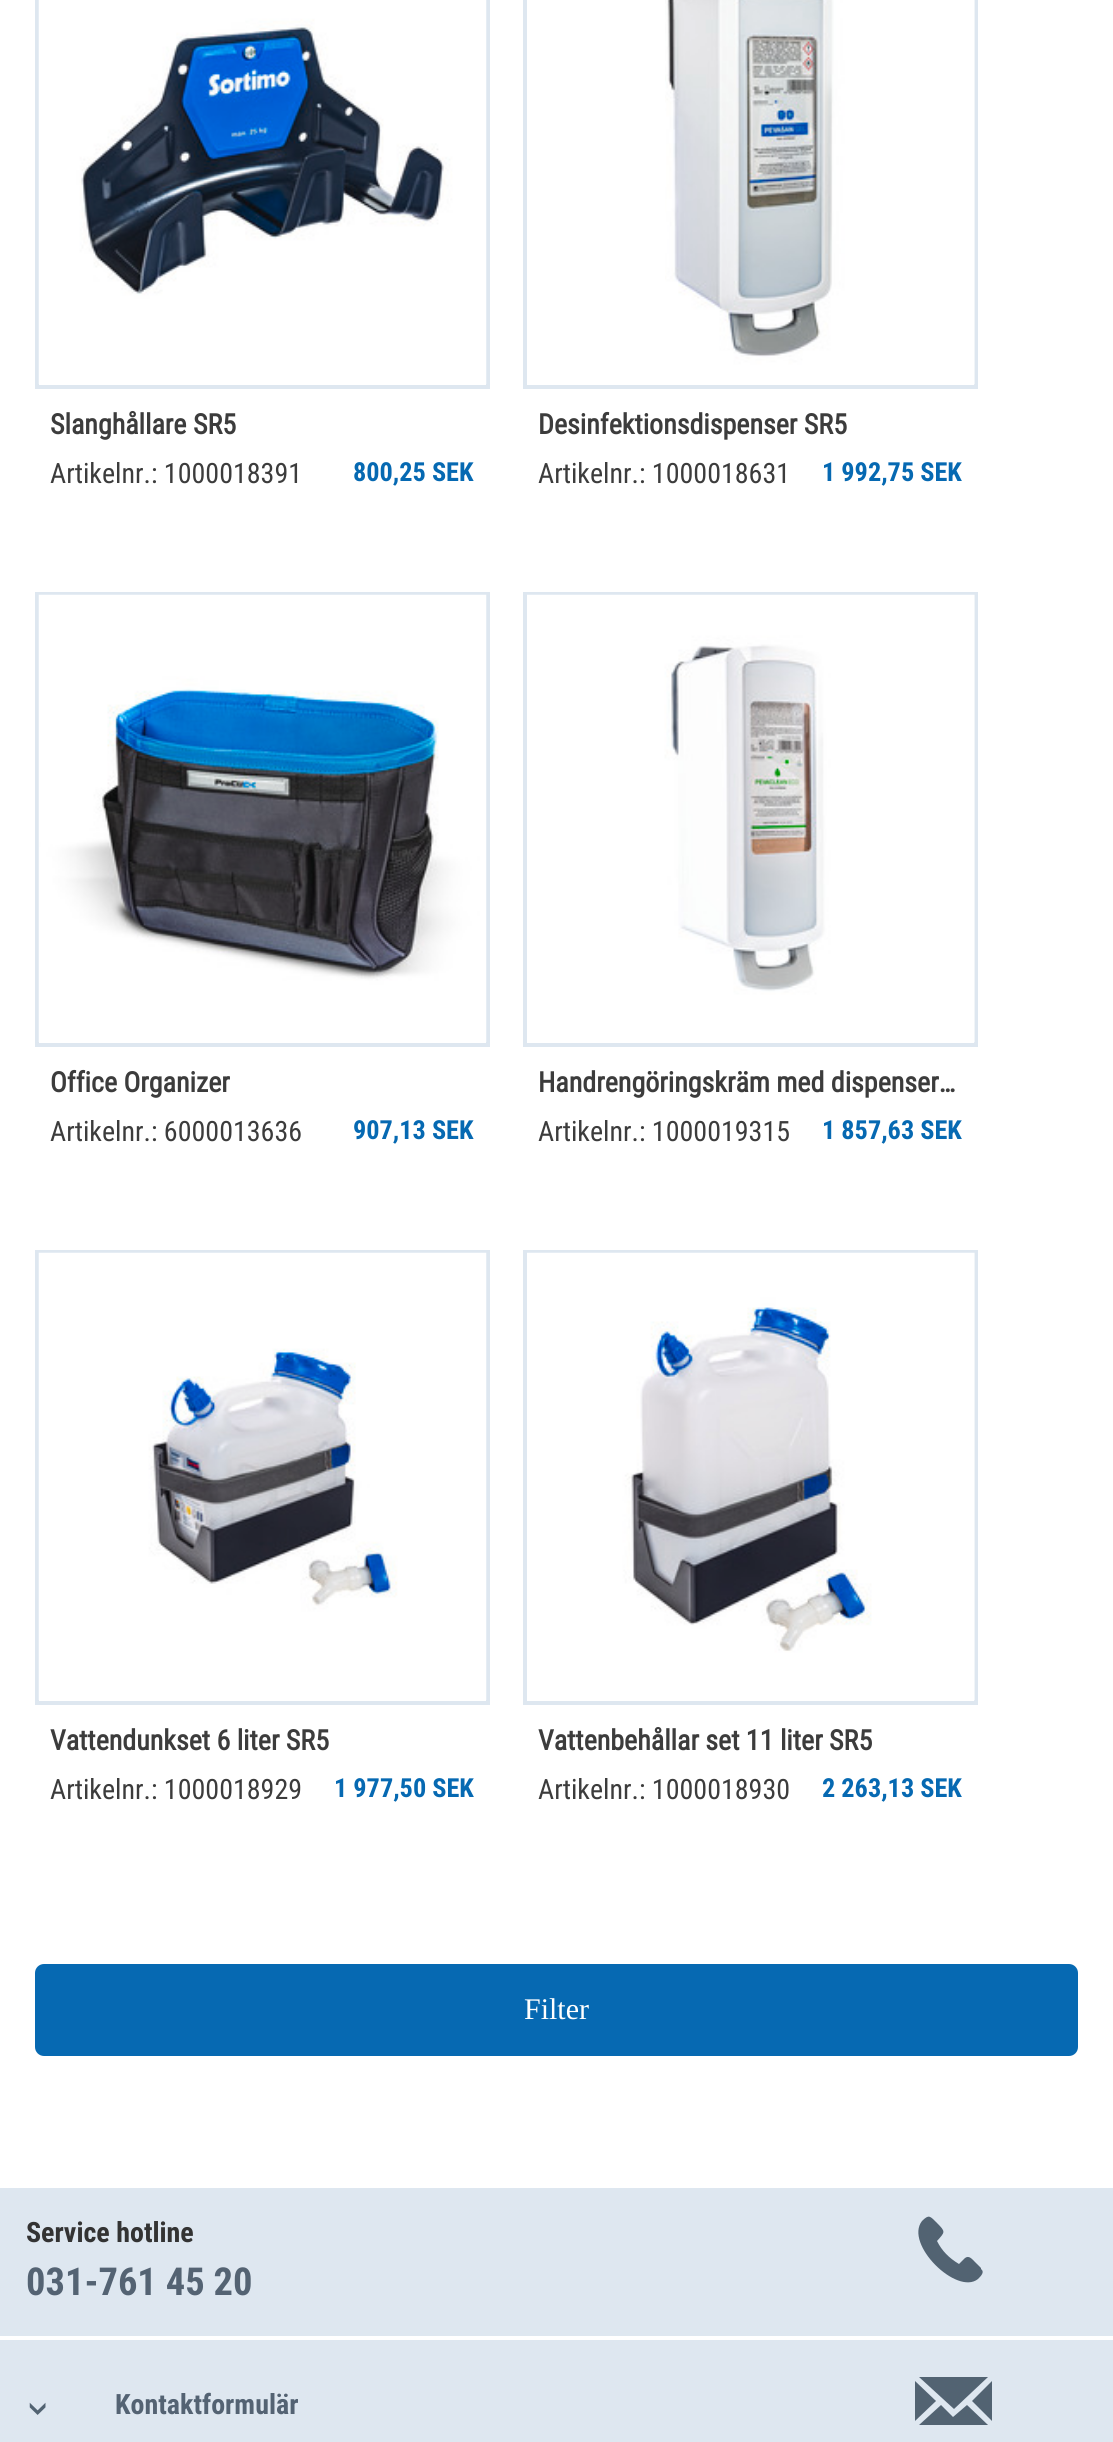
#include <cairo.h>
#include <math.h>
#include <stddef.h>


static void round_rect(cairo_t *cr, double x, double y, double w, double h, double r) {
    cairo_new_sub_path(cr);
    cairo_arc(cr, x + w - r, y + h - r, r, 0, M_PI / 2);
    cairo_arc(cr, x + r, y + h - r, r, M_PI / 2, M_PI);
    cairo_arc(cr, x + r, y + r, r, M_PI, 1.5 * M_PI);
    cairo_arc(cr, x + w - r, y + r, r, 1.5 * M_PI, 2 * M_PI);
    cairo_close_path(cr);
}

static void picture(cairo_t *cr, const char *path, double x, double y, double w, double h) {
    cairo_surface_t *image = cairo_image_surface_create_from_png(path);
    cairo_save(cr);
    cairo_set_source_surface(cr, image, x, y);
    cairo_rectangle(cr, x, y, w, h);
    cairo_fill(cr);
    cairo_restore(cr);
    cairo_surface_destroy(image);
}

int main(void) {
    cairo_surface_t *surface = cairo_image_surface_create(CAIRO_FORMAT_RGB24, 1113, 2442);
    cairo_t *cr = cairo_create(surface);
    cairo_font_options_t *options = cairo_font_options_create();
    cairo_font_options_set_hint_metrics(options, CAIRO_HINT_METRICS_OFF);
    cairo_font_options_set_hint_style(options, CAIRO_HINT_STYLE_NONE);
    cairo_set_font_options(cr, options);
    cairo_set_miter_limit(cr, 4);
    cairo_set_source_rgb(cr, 1, 1, 1);
    cairo_paint(cr);
    cairo_rectangle(cr, 37, -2, 451, 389);
    cairo_set_source_rgb(cr, 0.871, 0.906, 0.941);
    cairo_set_line_width(cr, 4);
    cairo_stroke(cr);
    picture(cr, "img1.png", 38, 0, 449, 384);
    cairo_select_font_face(cr, "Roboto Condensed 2", CAIRO_FONT_SLANT_NORMAL, CAIRO_FONT_WEIGHT_BOLD);
    cairo_set_font_size(cr, 28);
    cairo_set_source_rgb(cr, 0.235, 0.235, 0.235);
    cairo_move_to(cr, 50, 434);
    cairo_show_text(cr, "Slanghållare SR5");
    cairo_select_font_face(cr, "Roboto Condensed", CAIRO_FONT_SLANT_NORMAL, CAIRO_FONT_WEIGHT_NORMAL);
    cairo_move_to(cr, 50, 483);
    cairo_show_text(cr, "Artikelnr.: 1000018391");
    cairo_select_font_face(cr, "Roboto Condensed", CAIRO_FONT_SLANT_NORMAL, CAIRO_FONT_WEIGHT_BOLD);
    cairo_set_font_size(cr, 26.25);
    cairo_set_source_rgb(cr, 0.024, 0.412, 0.698);
    cairo_move_to(cr, 353, 481);
    cairo_show_text(cr, "800,25 SEK");
    cairo_rectangle(cr, 525, -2, 451, 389);
    cairo_set_source_rgb(cr, 0.871, 0.906, 0.941);
    cairo_stroke(cr);
    picture(cr, "img2.png", 665, 0, 310, 385);
    cairo_select_font_face(cr, "Roboto Condensed 2", CAIRO_FONT_SLANT_NORMAL, CAIRO_FONT_WEIGHT_BOLD);
    cairo_set_font_size(cr, 28);
    cairo_set_source_rgb(cr, 0.235, 0.235, 0.235);
    cairo_move_to(cr, 538, 434);
    cairo_show_text(cr, "Desinfektionsdispenser SR5");
    cairo_select_font_face(cr, "Roboto Condensed", CAIRO_FONT_SLANT_NORMAL, CAIRO_FONT_WEIGHT_NORMAL);
    cairo_move_to(cr, 538, 483);
    cairo_show_text(cr, "Artikelnr.: 1000018631");
    cairo_select_font_face(cr, "Roboto Condensed", CAIRO_FONT_SLANT_NORMAL, CAIRO_FONT_WEIGHT_BOLD);
    cairo_set_font_size(cr, 26.25);
    cairo_set_source_rgb(cr, 0.024, 0.412, 0.698);
    cairo_move_to(cr, 822, 481);
    cairo_show_text(cr, "1 992,75 SEK");
    cairo_rectangle(cr, 37, 594, 451, 451);
    cairo_set_source_rgb(cr, 0.871, 0.906, 0.941);
    cairo_stroke(cr);
    picture(cr, "img3.png", 38, 594, 449, 448);
    cairo_select_font_face(cr, "Roboto Condensed 2", CAIRO_FONT_SLANT_NORMAL, CAIRO_FONT_WEIGHT_BOLD);
    cairo_set_font_size(cr, 28);
    cairo_set_source_rgb(cr, 0.235, 0.235, 0.235);
    cairo_move_to(cr, 50, 1092);
    cairo_show_text(cr, "Office Organizer");
    cairo_select_font_face(cr, "Roboto Condensed", CAIRO_FONT_SLANT_NORMAL, CAIRO_FONT_WEIGHT_NORMAL);
    cairo_move_to(cr, 50, 1141);
    cairo_show_text(cr, "Artikelnr.: 6000013636");
    cairo_select_font_face(cr, "Roboto Condensed", CAIRO_FONT_SLANT_NORMAL, CAIRO_FONT_WEIGHT_BOLD);
    cairo_set_font_size(cr, 26.25);
    cairo_set_source_rgb(cr, 0.024, 0.412, 0.698);
    cairo_move_to(cr, 353, 1139);
    cairo_show_text(cr, "907,13 SEK");
    cairo_rectangle(cr, 525, 594, 451, 451);
    cairo_set_source_rgb(cr, 0.871, 0.906, 0.941);
    cairo_stroke(cr);
    picture(cr, "img4.png", 527, 594, 448, 449);
    cairo_select_font_face(cr, "Roboto Condensed 2", CAIRO_FONT_SLANT_NORMAL, CAIRO_FONT_WEIGHT_BOLD);
    cairo_set_font_size(cr, 28);
    cairo_set_source_rgb(cr, 0.235, 0.235, 0.235);
    cairo_move_to(cr, 538, 1092);
    cairo_show_text(cr, "Handrengöringskräm med dispenser…");
    cairo_select_font_face(cr, "Roboto Condensed", CAIRO_FONT_SLANT_NORMAL, CAIRO_FONT_WEIGHT_NORMAL);
    cairo_move_to(cr, 538, 1141);
    cairo_show_text(cr, "Artikelnr.: 1000019315");
    cairo_select_font_face(cr, "Roboto Condensed", CAIRO_FONT_SLANT_NORMAL, CAIRO_FONT_WEIGHT_BOLD);
    cairo_set_font_size(cr, 26.25);
    cairo_set_source_rgb(cr, 0.024, 0.412, 0.698);
    cairo_move_to(cr, 822, 1139);
    cairo_show_text(cr, "1 857,63 SEK");
    cairo_rectangle(cr, 37, 1252, 451, 451);
    cairo_set_source_rgb(cr, 0.871, 0.906, 0.941);
    cairo_stroke(cr);
    picture(cr, "img5.png", 38, 1252, 449, 448);
    cairo_select_font_face(cr, "Roboto Condensed 2", CAIRO_FONT_SLANT_NORMAL, CAIRO_FONT_WEIGHT_BOLD);
    cairo_set_font_size(cr, 28);
    cairo_set_source_rgb(cr, 0.235, 0.235, 0.235);
    cairo_move_to(cr, 50, 1750);
    cairo_show_text(cr, "Vattendunkset 6 liter SR5");
    cairo_select_font_face(cr, "Roboto Condensed", CAIRO_FONT_SLANT_NORMAL, CAIRO_FONT_WEIGHT_NORMAL);
    cairo_move_to(cr, 50, 1799);
    cairo_show_text(cr, "Artikelnr.: 1000018929");
    cairo_select_font_face(cr, "Roboto Condensed", CAIRO_FONT_SLANT_NORMAL, CAIRO_FONT_WEIGHT_BOLD);
    cairo_set_font_size(cr, 26.25);
    cairo_set_source_rgb(cr, 0.024, 0.412, 0.698);
    cairo_move_to(cr, 334, 1797);
    cairo_show_text(cr, "1 977,50 SEK");
    cairo_rectangle(cr, 525, 1252, 451, 451);
    cairo_set_source_rgb(cr, 0.871, 0.906, 0.941);
    cairo_stroke(cr);
    picture(cr, "img6.png", 527, 1252, 448, 449);
    cairo_select_font_face(cr, "Roboto Condensed 2", CAIRO_FONT_SLANT_NORMAL, CAIRO_FONT_WEIGHT_BOLD);
    cairo_set_font_size(cr, 28);
    cairo_set_source_rgb(cr, 0.235, 0.235, 0.235);
    cairo_move_to(cr, 538, 1750);
    cairo_show_text(cr, "Vattenbehållar set 11 liter SR5");
    cairo_select_font_face(cr, "Roboto Condensed", CAIRO_FONT_SLANT_NORMAL, CAIRO_FONT_WEIGHT_NORMAL);
    cairo_move_to(cr, 538, 1799);
    cairo_show_text(cr, "Artikelnr.: 1000018930");
    cairo_select_font_face(cr, "Roboto Condensed", CAIRO_FONT_SLANT_NORMAL, CAIRO_FONT_WEIGHT_BOLD);
    cairo_set_font_size(cr, 26.25);
    cairo_set_source_rgb(cr, 0.024, 0.412, 0.698);
    cairo_move_to(cr, 822, 1797);
    cairo_show_text(cr, "2 263,13 SEK");
    round_rect(cr, 35, 1964, 1043, 92, 9);
    cairo_fill(cr);
    cairo_select_font_face(cr, "Liberation Serif", CAIRO_FONT_SLANT_NORMAL, CAIRO_FONT_WEIGHT_NORMAL);
    cairo_set_font_size(cr, 30);
    cairo_set_source_rgb(cr, 1, 1, 1);
    cairo_move_to(cr, 524, 2019);
    cairo_show_text(cr, "Filter");
    cairo_set_source_rgb(cr, 0.871, 0.906, 0.941);
    cairo_rectangle(cr, 0, 2188, 1113, 148);
    cairo_fill(cr);
    cairo_select_font_face(cr, "Roboto Condensed", CAIRO_FONT_SLANT_NORMAL, CAIRO_FONT_WEIGHT_BOLD);
    cairo_set_font_size(cr, 28);
    cairo_set_source_rgb(cr, 0.2, 0.2, 0.2);
    cairo_move_to(cr, 26, 2242);
    cairo_show_text(cr, "Service hotline");
    cairo_set_font_size(cr, 38.5);
    cairo_set_source_rgb(cr, 0.329, 0.388, 0.451);
    cairo_move_to(cr, 26, 2295);
    cairo_show_text(cr, "031-761 45 20");
    cairo_set_source_rgb(cr, 0.322, 0.388, 0.447);
    cairo_set_fill_rule(cr, CAIRO_FILL_RULE_EVEN_ODD);
    cairo_new_path(cr);
    cairo_move_to(cr, 981, 2268);
    cairo_line_to(cr, 975, 2262);
    cairo_curve_to(cr, 972, 2259, 969, 2255, 965, 2258);
    cairo_line_to(cr, 959, 2264);
    cairo_curve_to(cr, 949, 2258, 942, 2251, 937, 2241);
    cairo_curve_to(cr, 945, 2232, 946, 2232, 937, 2223);
    cairo_curve_to(cr, 930, 2216, 929, 2214, 922, 2221);
    cairo_curve_to(cr, 904, 2244, 957, 2296, 978, 2279);
    cairo_curve_to(cr, 981, 2276, 985, 2272, 981, 2269);
    cairo_close_path(cr);
    cairo_fill(cr);
    cairo_set_source_rgb(cr, 0.871, 0.906, 0.941);
    cairo_rectangle(cr, 0, 2340, 1113, 102);
    cairo_fill(cr);
    picture(cr, "img7.png", 29, 2402, 17, 13);
    cairo_set_font_size(cr, 28);
    cairo_set_source_rgb(cr, 0.329, 0.388, 0.451);
    cairo_move_to(cr, 115, 2414);
    cairo_show_text(cr, "Kontaktformulär");
    cairo_set_source_rgb(cr, 0.322, 0.388, 0.447);
    cairo_new_path(cr);
    cairo_move_to(cr, 915, 2381);
    cairo_line_to(cr, 936, 2401);
    cairo_line_to(cr, 915, 2421);
    cairo_close_path(cr);
    cairo_move_to(cr, 992, 2421);
    cairo_line_to(cr, 972, 2401);
    cairo_line_to(cr, 992, 2381);
    cairo_close_path(cr);
    cairo_move_to(cr, 988, 2377);
    cairo_line_to(cr, 954, 2409);
    cairo_line_to(cr, 919, 2377);
    cairo_close_path(cr);
    cairo_move_to(cr, 919, 2425);
    cairo_line_to(cr, 941, 2405);
    cairo_line_to(cr, 953, 2417);
    cairo_line_to(cr, 967, 2405);
    cairo_line_to(cr, 988, 2425);
    cairo_close_path(cr);
    cairo_fill(cr);
    cairo_surface_write_to_png(surface, "page.png");
    cairo_font_options_destroy(options);
    cairo_destroy(cr);
    cairo_surface_destroy(surface);
    return 0;
}
